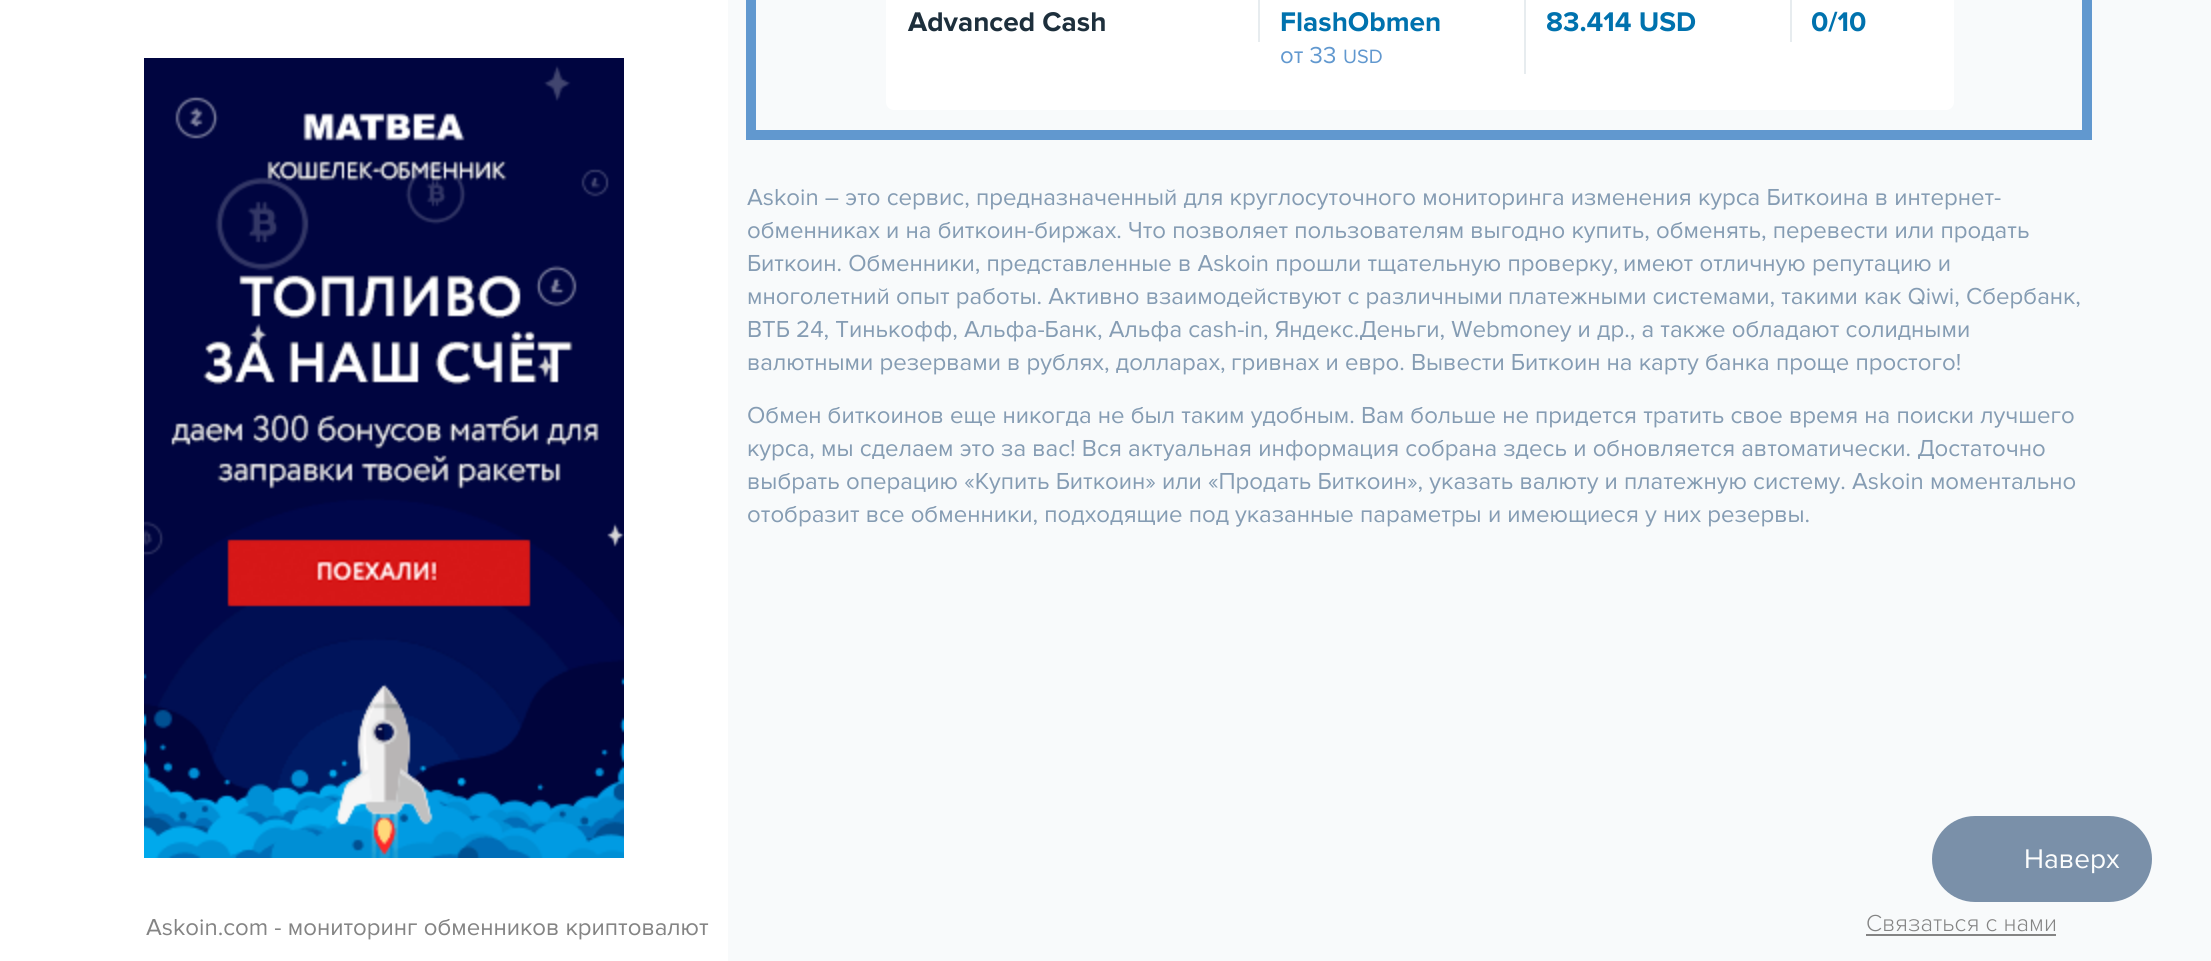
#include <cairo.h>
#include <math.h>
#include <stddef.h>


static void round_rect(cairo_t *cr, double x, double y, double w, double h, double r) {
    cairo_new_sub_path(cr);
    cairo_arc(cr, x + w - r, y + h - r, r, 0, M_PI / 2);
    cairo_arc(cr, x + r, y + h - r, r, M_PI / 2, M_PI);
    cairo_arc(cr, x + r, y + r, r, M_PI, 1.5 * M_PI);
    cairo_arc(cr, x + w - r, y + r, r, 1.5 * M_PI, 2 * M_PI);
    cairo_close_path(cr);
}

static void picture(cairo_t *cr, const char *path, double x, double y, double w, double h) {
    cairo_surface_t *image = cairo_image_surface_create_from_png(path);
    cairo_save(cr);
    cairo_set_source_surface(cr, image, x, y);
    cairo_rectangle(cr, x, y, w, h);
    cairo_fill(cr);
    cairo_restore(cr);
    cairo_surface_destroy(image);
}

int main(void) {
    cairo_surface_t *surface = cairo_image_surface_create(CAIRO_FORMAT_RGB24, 2211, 961);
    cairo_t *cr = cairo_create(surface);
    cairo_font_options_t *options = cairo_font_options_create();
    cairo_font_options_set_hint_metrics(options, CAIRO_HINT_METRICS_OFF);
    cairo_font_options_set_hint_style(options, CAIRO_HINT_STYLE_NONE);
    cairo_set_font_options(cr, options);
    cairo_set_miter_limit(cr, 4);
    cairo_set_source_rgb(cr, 0.969, 0.98, 0.984);
    cairo_paint(cr);
    cairo_set_source_rgb(cr, 1, 1, 1);
    cairo_rectangle(cr, 0, 0, 728, 961);
    cairo_fill(cr);
    picture(cr, "img1.png", 144, 58, 480, 800);
    cairo_rectangle(cr, 751, -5, 1336, 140);
    cairo_set_source_rgb(cr, 0.38, 0.596, 0.812);
    cairo_set_line_width(cr, 10);
    cairo_stroke(cr);
    cairo_set_source_rgb(cr, 1, 1, 1);
    round_rect(cr, 886, -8, 1068, 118, 8);
    cairo_fill(cr);
    cairo_set_source_rgb(cr, 0.906, 0.922, 0.937);
    cairo_rectangle(cr, 1258, 0, 2, 42);
    cairo_fill(cr);
    cairo_select_font_face(cr, "Proxima Nova", CAIRO_FONT_SLANT_NORMAL, CAIRO_FONT_WEIGHT_BOLD);
    cairo_set_font_size(cr, 28);
    cairo_set_source_rgb(cr, 0.114, 0.184, 0.235);
    cairo_move_to(cr, 908, 31);
    cairo_show_text(cr, "Advanced Cash");
    cairo_set_source_rgb(cr, 0.906, 0.922, 0.937);
    cairo_rectangle(cr, 1524, 0, 2, 74);
    cairo_fill(cr);
    cairo_set_source_rgb(cr, 0, 0.447, 0.682);
    cairo_move_to(cr, 1280, 31);
    cairo_show_text(cr, "FlashObmen");
    cairo_select_font_face(cr, "Proxima Nova", CAIRO_FONT_SLANT_NORMAL, CAIRO_FONT_WEIGHT_NORMAL);
    cairo_set_font_size(cr, 24);
    cairo_set_source_rgb(cr, 0.38, 0.596, 0.812);
    cairo_move_to(cr, 1280, 63);
    cairo_show_text(cr, "от 33");
    cairo_set_font_size(cr, 20);
    cairo_move_to(cr, 1343, 63);
    cairo_show_text(cr, "USD");
    cairo_set_source_rgb(cr, 0.906, 0.922, 0.937);
    cairo_rectangle(cr, 1790, 0, 2, 42);
    cairo_fill(cr);
    cairo_select_font_face(cr, "Proxima Nova", CAIRO_FONT_SLANT_NORMAL, CAIRO_FONT_WEIGHT_BOLD);
    cairo_set_font_size(cr, 28);
    cairo_set_source_rgb(cr, 0, 0.447, 0.682);
    cairo_move_to(cr, 1546, 31);
    cairo_show_text(cr, "83.414 USD");
    cairo_move_to(cr, 1811, 31);
    cairo_show_text(cr, "0/10");
    cairo_select_font_face(cr, "Proxima Nova", CAIRO_FONT_SLANT_NORMAL, CAIRO_FONT_WEIGHT_NORMAL);
    cairo_set_font_size(cr, 24);
    cairo_set_source_rgb(cr, 0.522, 0.612, 0.702);
    cairo_move_to(cr, 747, 205);
    cairo_show_text(cr, "Askoin – это сервис, предназначенный для круглосуточного мониторинга изменения курса Биткоина в интернет-");
    cairo_move_to(cr, 747, 238);
    cairo_show_text(cr, "обменниках и на биткоин-биржах. Что позволяет пользователям выгодно купить, обменять, перевести или продать");
    cairo_move_to(cr, 747, 271);
    cairo_show_text(cr, "Биткоин. Обменники, представленные в Askoin прошли тщательную проверку,");
    cairo_move_to(cr, 1623, 271);
    cairo_show_text(cr, "имеют отличную репутацию и");
    cairo_move_to(cr, 747, 304);
    cairo_show_text(cr, "многолетний опыт работы. Активно взаимодействуют с различными");
    cairo_move_to(cr, 1508, 304);
    cairo_show_text(cr, "платежными системами, такими как Qiwi, Сбербанк,");
    cairo_move_to(cr, 747, 337);
    cairo_show_text(cr, "ВТБ 24, Тинькофф, Альфа-Банк, Альфа cash-in, Яндекс.Деньги, Webmoney и др., а также обладают солидными");
    cairo_move_to(cr, 747, 370);
    cairo_show_text(cr, "валютными резервами в рублях, долларах,");
    cairo_move_to(cr, 1231, 370);
    cairo_show_text(cr, "гривнах и евро. Вывести Биткоин на карту банка проще простого!");
    cairo_move_to(cr, 747, 423);
    cairo_show_text(cr, "Обмен биткоинов еще никогда не был таким удобным. Вам больше не придется тратить свое время на поиски лучшего");
    cairo_move_to(cr, 747, 456);
    cairo_show_text(cr, "курса, мы сделаем это за вас! Вся актуальная информация собрана здесь и обновляется автоматически. Достаточно");
    cairo_move_to(cr, 747, 489);
    cairo_show_text(cr, "выбрать операцию «Купить Биткоин» или «Продать Биткоин», указать валюту и платежную систему. Askoin моментально");
    cairo_move_to(cr, 747, 522);
    cairo_show_text(cr, "отобразит все обменники, подходящие под");
    cairo_move_to(cr, 1235, 522);
    cairo_show_text(cr, "указанные параметры и имеющиеся у них резервы.");
    cairo_set_source_rgb(cr, 0.478, 0.565, 0.663);
    round_rect(cr, 1932, 816, 220, 86, 43);
    cairo_fill(cr);
    cairo_set_font_size(cr, 28);
    cairo_set_source_rgb(cr, 0.988, 0.992, 0.992);
    cairo_move_to(cr, 2024, 868);
    cairo_show_text(cr, "Наверх");
    cairo_set_font_size(cr, 24);
    cairo_set_source_rgb(cr, 0.518, 0.518, 0.518);
    cairo_move_to(cr, 146, 935);
    cairo_show_text(cr, "Askoin.com - мониторинг обменников криптовалют");
    cairo_select_font_face(cr, "Proxima Nova Light", CAIRO_FONT_SLANT_NORMAL, CAIRO_FONT_WEIGHT_NORMAL);
    cairo_move_to(cr, 1866, 931);
    cairo_show_text(cr, "Связаться с нами");
    cairo_rectangle(cr, 1866, 934, 190, 2);
    cairo_fill(cr);
    cairo_surface_write_to_png(surface, "page.png");
    cairo_font_options_destroy(options);
    cairo_destroy(cr);
    cairo_surface_destroy(surface);
    return 0;
}
